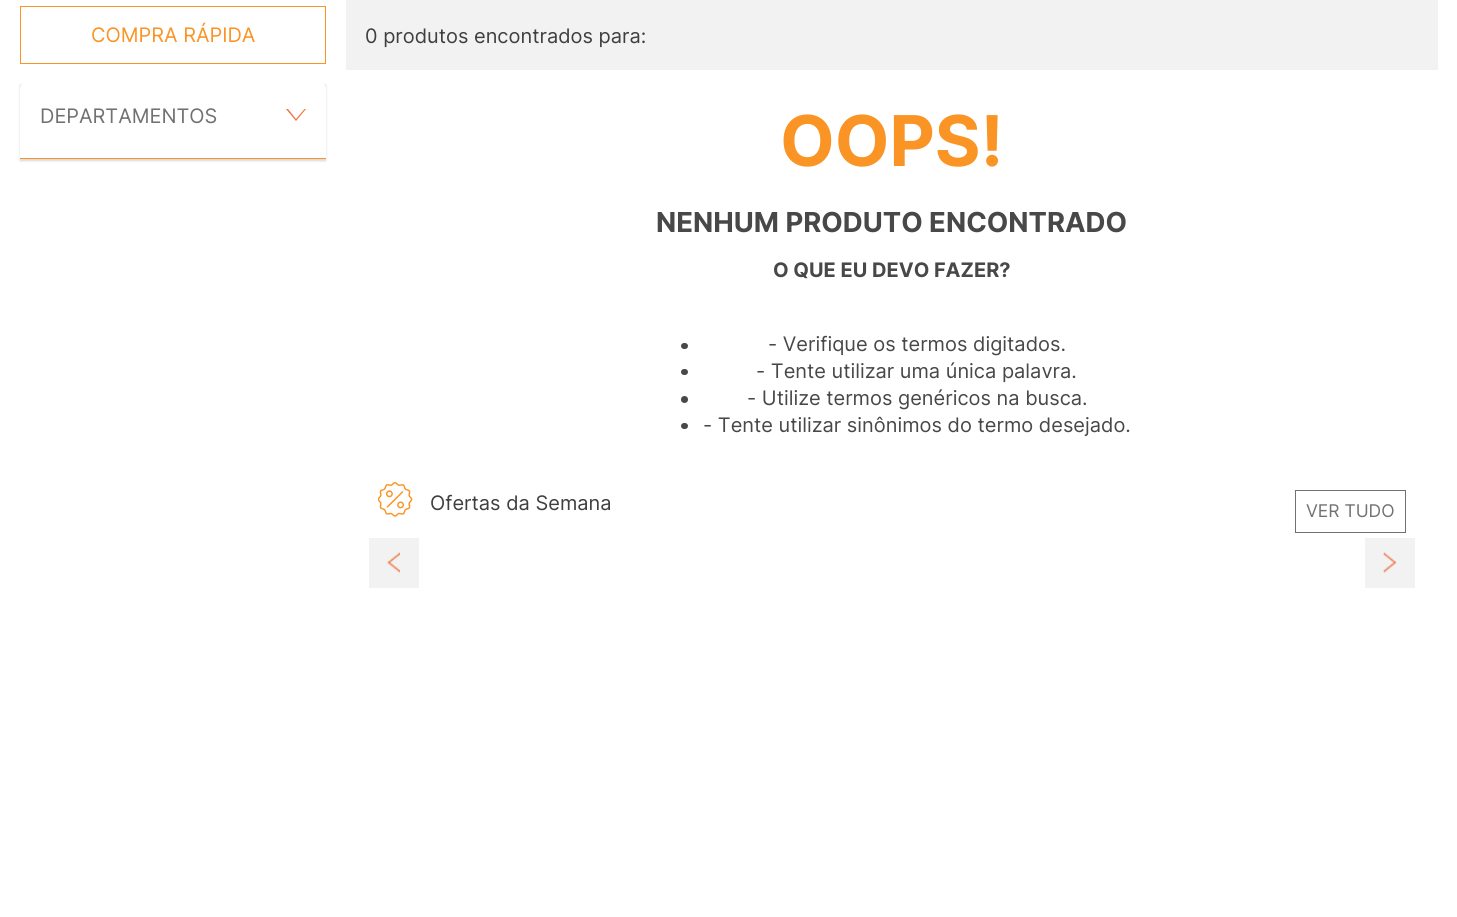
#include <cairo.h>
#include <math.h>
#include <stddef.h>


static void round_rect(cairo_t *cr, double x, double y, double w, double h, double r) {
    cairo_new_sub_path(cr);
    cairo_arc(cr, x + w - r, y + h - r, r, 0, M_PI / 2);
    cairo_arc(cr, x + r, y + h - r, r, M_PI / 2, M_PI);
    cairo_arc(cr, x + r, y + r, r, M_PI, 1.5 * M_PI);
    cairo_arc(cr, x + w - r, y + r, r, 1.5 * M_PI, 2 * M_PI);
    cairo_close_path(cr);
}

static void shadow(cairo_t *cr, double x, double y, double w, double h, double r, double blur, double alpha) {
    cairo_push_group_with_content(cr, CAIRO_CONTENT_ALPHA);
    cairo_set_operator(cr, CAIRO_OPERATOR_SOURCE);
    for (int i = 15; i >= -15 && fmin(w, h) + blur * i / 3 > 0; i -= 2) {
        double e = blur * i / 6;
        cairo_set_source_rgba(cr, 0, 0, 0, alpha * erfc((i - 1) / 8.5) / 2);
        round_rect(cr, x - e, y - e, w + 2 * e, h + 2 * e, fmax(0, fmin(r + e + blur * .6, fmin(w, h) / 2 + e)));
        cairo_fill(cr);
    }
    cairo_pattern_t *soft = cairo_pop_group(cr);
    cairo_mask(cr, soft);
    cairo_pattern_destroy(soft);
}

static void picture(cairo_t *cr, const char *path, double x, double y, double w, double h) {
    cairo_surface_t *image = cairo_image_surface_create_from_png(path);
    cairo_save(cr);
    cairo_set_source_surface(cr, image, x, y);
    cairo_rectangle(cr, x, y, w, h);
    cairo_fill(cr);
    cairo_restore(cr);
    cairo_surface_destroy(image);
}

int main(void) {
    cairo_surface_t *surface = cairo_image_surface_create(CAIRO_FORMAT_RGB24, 1457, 917);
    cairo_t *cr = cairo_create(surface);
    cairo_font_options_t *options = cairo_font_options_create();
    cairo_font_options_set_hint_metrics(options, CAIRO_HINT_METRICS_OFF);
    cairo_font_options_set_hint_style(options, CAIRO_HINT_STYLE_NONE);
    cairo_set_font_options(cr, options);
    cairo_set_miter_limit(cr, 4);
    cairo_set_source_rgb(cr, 1, 1, 1);
    cairo_paint(cr);
    cairo_rectangle(cr, 20.5, 6.5, 305, 57);
    cairo_set_source_rgb(cr, 0.98, 0.58, 0.145);
    cairo_set_line_width(cr, 1);
    cairo_stroke(cr);
    cairo_select_font_face(cr, "Inter", CAIRO_FONT_SLANT_NORMAL, CAIRO_FONT_WEIGHT_NORMAL);
    cairo_set_font_size(cr, 20);
    cairo_move_to(cr, 91, 42);
    cairo_show_text(cr, "COMPRA RÁPIDA");
    cairo_set_source_rgb(cr, 0, 0, 0);
    shadow(cr, 20, 85, 306, 76, 0, 1, 0.15);
    cairo_set_source_rgb(cr, 1, 1, 1);
    cairo_new_path(cr);
    cairo_move_to(cr, 26, 83);
    cairo_line_to(cr, 320, 83);
    cairo_curve_to(cr, 323.5, 83, 326, 85.5, 326, 89);
    cairo_line_to(cr, 326, 159);
    cairo_line_to(cr, 20, 159);
    cairo_line_to(cr, 20, 89);
    cairo_curve_to(cr, 20, 85.5, 22.5, 83, 26, 83);
    cairo_close_path(cr);
    cairo_fill(cr);
    cairo_set_source_rgb(cr, 0.98, 0.58, 0.145);
    cairo_rectangle(cr, 20, 158, 306, 1);
    cairo_fill(cr);
    cairo_set_source_rgb(cr, 0.443, 0.443, 0.443);
    cairo_move_to(cr, 40, 123);
    cairo_show_text(cr, "DEPARTAMENTOS");
    cairo_set_source_rgb(cr, 0.925, 0.463, 0.275);
    cairo_new_path(cr);
    cairo_move_to(cr, 296, 119);
    cairo_line_to(cr, 288, 109);
    cairo_line_to(cr, 286, 109);
    cairo_line_to(cr, 296, 121);
    cairo_line_to(cr, 306, 109);
    cairo_line_to(cr, 304.5, 109);
    cairo_close_path(cr);
    cairo_fill(cr);
    cairo_set_source_rgb(cr, 0.949, 0.949, 0.949);
    cairo_rectangle(cr, 346, 0, 1092, 70);
    cairo_fill(cr);
    cairo_set_source_rgb(cr, 0.247, 0.247, 0.251);
    cairo_move_to(cr, 365, 43);
    cairo_show_text(cr, "0 produtos encontrados para:");
    cairo_select_font_face(cr, "Inter", CAIRO_FONT_SLANT_NORMAL, CAIRO_FONT_WEIGHT_BOLD);
    cairo_set_font_size(cr, 70);
    cairo_set_source_rgb(cr, 0.98, 0.58, 0.145);
    cairo_move_to(cr, 780, 166);
    cairo_show_text(cr, "OOPS!");
    cairo_set_font_size(cr, 27.5);
    cairo_set_source_rgb(cr, 0.282, 0.282, 0.282);
    cairo_move_to(cr, 656, 232);
    cairo_show_text(cr, "NENHUM PRODUTO ENCONTRADO");
    cairo_set_font_size(cr, 20);
    cairo_move_to(cr, 773, 277);
    cairo_show_text(cr, "O QUE EU DEVO FAZER?");
    round_rect(cr, 681, 343, 7, 6, 3);
    cairo_fill(cr);
    cairo_select_font_face(cr, "Inter", CAIRO_FONT_SLANT_NORMAL, CAIRO_FONT_WEIGHT_NORMAL);
    cairo_move_to(cr, 768, 351);
    cairo_show_text(cr, "- Verifique os termos digitados.");
    round_rect(cr, 681, 369, 7, 6, 3);
    cairo_fill(cr);
    cairo_move_to(cr, 756, 378);
    cairo_show_text(cr, "- Tente utilizar uma única palavra.");
    cairo_new_path(cr);
    cairo_arc(cr, 684.5, 399.5, 3.5, 0, 2 * M_PI);
    cairo_fill(cr);
    cairo_move_to(cr, 747, 405);
    cairo_show_text(cr, "- Utilize termos genéricos na busca.");
    round_rect(cr, 681, 423, 7, 6, 3);
    cairo_fill(cr);
    cairo_move_to(cr, 703, 432);
    cairo_show_text(cr, "- Tente utilizar sinônimos do termo desejado.");
    picture(cr, "img1.png", 378, 482, 35, 35);
    cairo_set_source_rgb(cr, 0.247, 0.247, 0.251);
    cairo_move_to(cr, 430, 510);
    cairo_show_text(cr, "Ofertas da Semana");
    cairo_rectangle(cr, 1295.5, 490.5, 110, 42);
    cairo_set_source_rgb(cr, 0.443, 0.443, 0.443);
    cairo_stroke(cr);
    cairo_set_font_size(cr, 17.5);
    cairo_move_to(cr, 1306, 517);
    cairo_show_text(cr, "VER TUDO");
    cairo_set_source_rgb(cr, 0.949, 0.949, 0.949);
    cairo_rectangle(cr, 369, 538, 50, 50);
    cairo_fill(cr);
    picture(cr, "img2.png", 387, 552, 13, 21);
    cairo_rectangle(cr, 1365, 538, 50, 50);
    cairo_fill(cr);
    picture(cr, "img3.png", 1383, 552, 14, 21);
    cairo_surface_write_to_png(surface, "page.png");
    cairo_font_options_destroy(options);
    cairo_destroy(cr);
    cairo_surface_destroy(surface);
    return 0;
}
